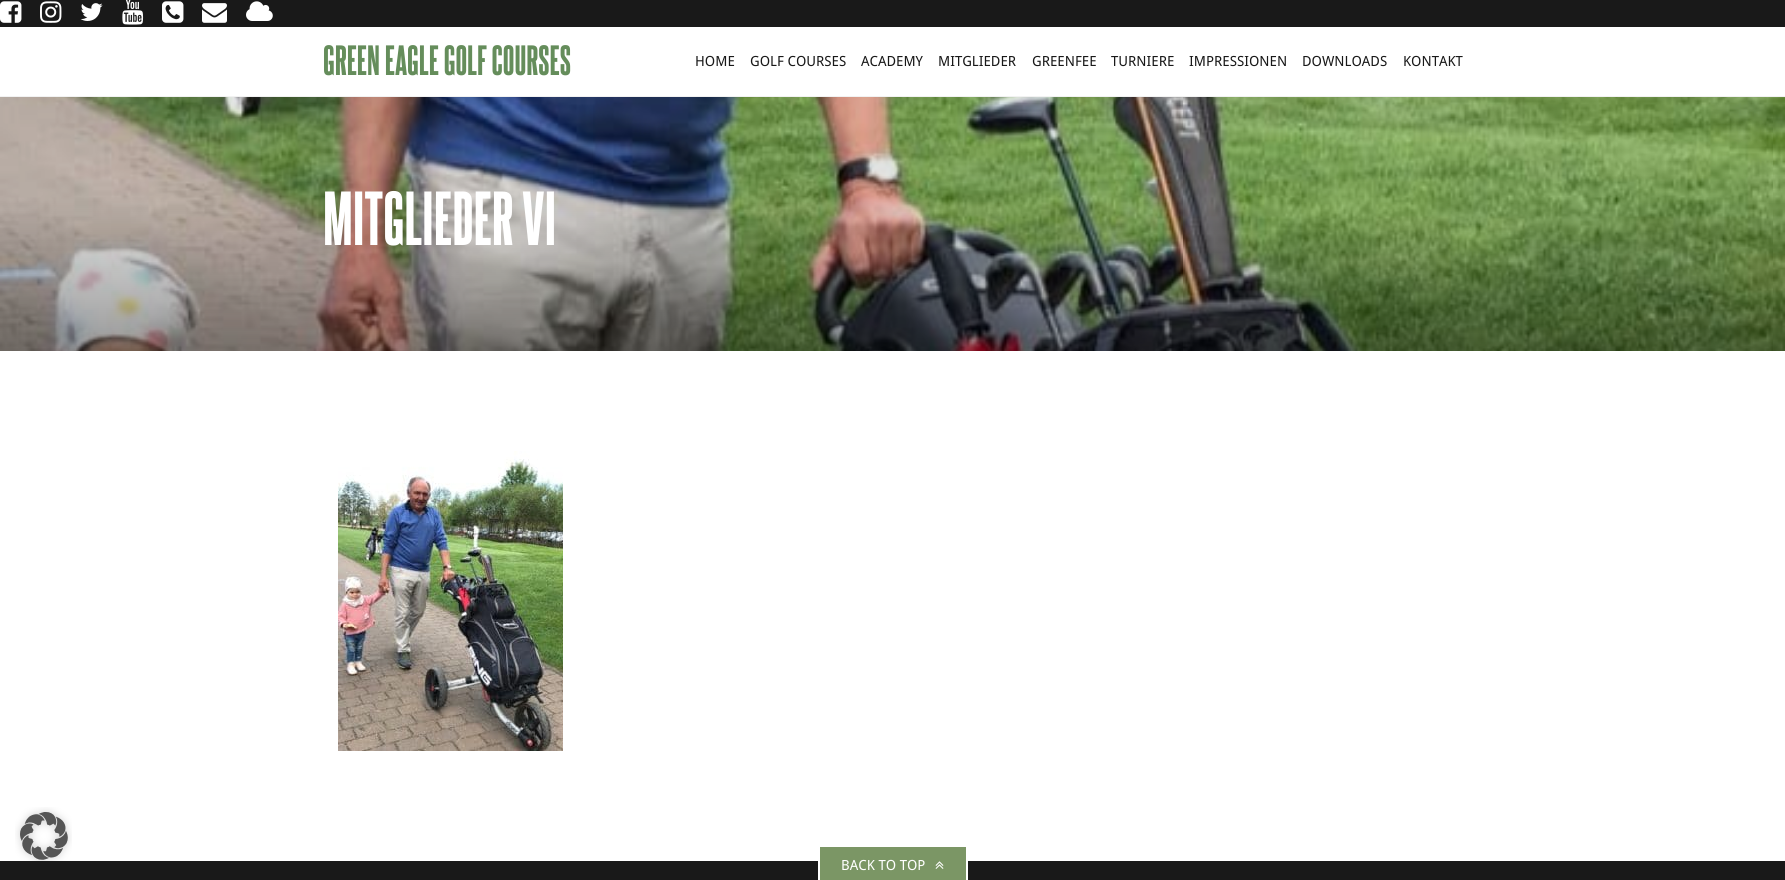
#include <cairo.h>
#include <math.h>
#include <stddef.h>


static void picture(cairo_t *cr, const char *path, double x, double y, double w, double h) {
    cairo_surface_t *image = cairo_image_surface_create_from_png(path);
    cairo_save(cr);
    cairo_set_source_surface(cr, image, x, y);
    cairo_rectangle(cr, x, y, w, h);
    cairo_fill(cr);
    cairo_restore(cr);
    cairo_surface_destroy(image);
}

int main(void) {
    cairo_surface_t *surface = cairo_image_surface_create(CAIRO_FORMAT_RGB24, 1785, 880);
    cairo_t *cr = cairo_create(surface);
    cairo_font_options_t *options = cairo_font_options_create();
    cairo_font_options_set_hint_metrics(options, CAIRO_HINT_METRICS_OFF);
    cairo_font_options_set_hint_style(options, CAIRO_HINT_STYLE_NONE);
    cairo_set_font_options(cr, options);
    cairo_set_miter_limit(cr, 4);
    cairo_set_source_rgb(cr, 1, 1, 1);
    cairo_paint(cr);
    cairo_set_source_rgb(cr, 0.098, 0.098, 0.098);
    cairo_rectangle(cr, 0, 0, 1785, 27);
    cairo_fill(cr);
    picture(cr, "img1.png", 0, 1, 22, 22);
    picture(cr, "img2.png", 40, 1, 22, 22);
    picture(cr, "img3.png", 80, 3, 23, 18);
    picture(cr, "img4.png", 122, 0, 22, 25);
    picture(cr, "img5.png", 162, 1, 22, 22);
    picture(cr, "img6.png", 202, 3, 25, 20);
    picture(cr, "img7.png", 246, 1, 27, 20);
    cairo_set_source_rgb(cr, 0.949, 0.949, 0.949);
    cairo_rectangle(cr, 0, 96, 1785, 1);
    cairo_fill(cr);
    cairo_select_font_face(cr, "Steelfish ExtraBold", CAIRO_FONT_SLANT_NORMAL, CAIRO_FONT_WEIGHT_NORMAL);
    cairo_set_font_size(cr, 36);
    cairo_set_source_rgb(cr, 0.396, 0.553, 0.357);
    cairo_move_to(cr, 323, 75);
    cairo_show_text(cr, "GREEN EAGLE GOLF COURSES");
    cairo_select_font_face(cr, "Droid Sans", CAIRO_FONT_SLANT_NORMAL, CAIRO_FONT_WEIGHT_NORMAL);
    cairo_set_font_size(cr, 14);
    cairo_set_source_rgb(cr, 0.098, 0.098, 0.098);
    cairo_move_to(cr, 695, 66);
    cairo_show_text(cr, "HOME");
    cairo_move_to(cr, 750, 66);
    cairo_show_text(cr, "GOLF COURSES");
    cairo_move_to(cr, 861, 66);
    cairo_show_text(cr, "ACADEMY");
    cairo_move_to(cr, 938, 66);
    cairo_show_text(cr, "MITGLIEDER");
    cairo_move_to(cr, 1032, 66);
    cairo_show_text(cr, "GREENFEE");
    cairo_move_to(cr, 1111, 66);
    cairo_show_text(cr, "TURNIERE");
    cairo_move_to(cr, 1189, 66);
    cairo_show_text(cr, "IMPRESSIONEN");
    cairo_move_to(cr, 1302, 66);
    cairo_show_text(cr, "DOWNLOADS");
    cairo_move_to(cr, 1403, 66);
    cairo_show_text(cr, "KONTAKT");
    picture(cr, "img8.png", 0, 97, 1785, 254);
    cairo_select_font_face(cr, "Steelfish ExtraBold", CAIRO_FONT_SLANT_NORMAL, CAIRO_FONT_WEIGHT_NORMAL);
    cairo_set_font_size(cr, 65);
    cairo_set_source_rgb(cr, 1, 1, 1);
    cairo_move_to(cr, 323, 245);
    cairo_show_text(cr, "MITGLIEDER VI");
    picture(cr, "img9.png", 338, 451, 225, 300);
    picture(cr, "img10.png", 15, 807, 57, 54);
    cairo_set_source_rgb(cr, 0.098, 0.098, 0.098);
    cairo_rectangle(cr, 0, 861, 1785, 19);
    cairo_fill(cr);
    cairo_set_source_rgb(cr, 0.482, 0.588, 0.396);
    cairo_rectangle(cr, 819, 846, 148, 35);
    cairo_fill_preserve(cr);
    cairo_set_source_rgb(cr, 1, 1, 1);
    cairo_stroke(cr);
    cairo_select_font_face(cr, "Droid Sans", CAIRO_FONT_SLANT_NORMAL, CAIRO_FONT_WEIGHT_NORMAL);
    cairo_set_font_size(cr, 14);
    cairo_move_to(cr, 841, 870);
    cairo_show_text(cr, "BACK TO TOP");
    picture(cr, "img11.png", 935, 861, 9, 8);
    cairo_surface_write_to_png(surface, "page.png");
    cairo_font_options_destroy(options);
    cairo_destroy(cr);
    cairo_surface_destroy(surface);
    return 0;
}
